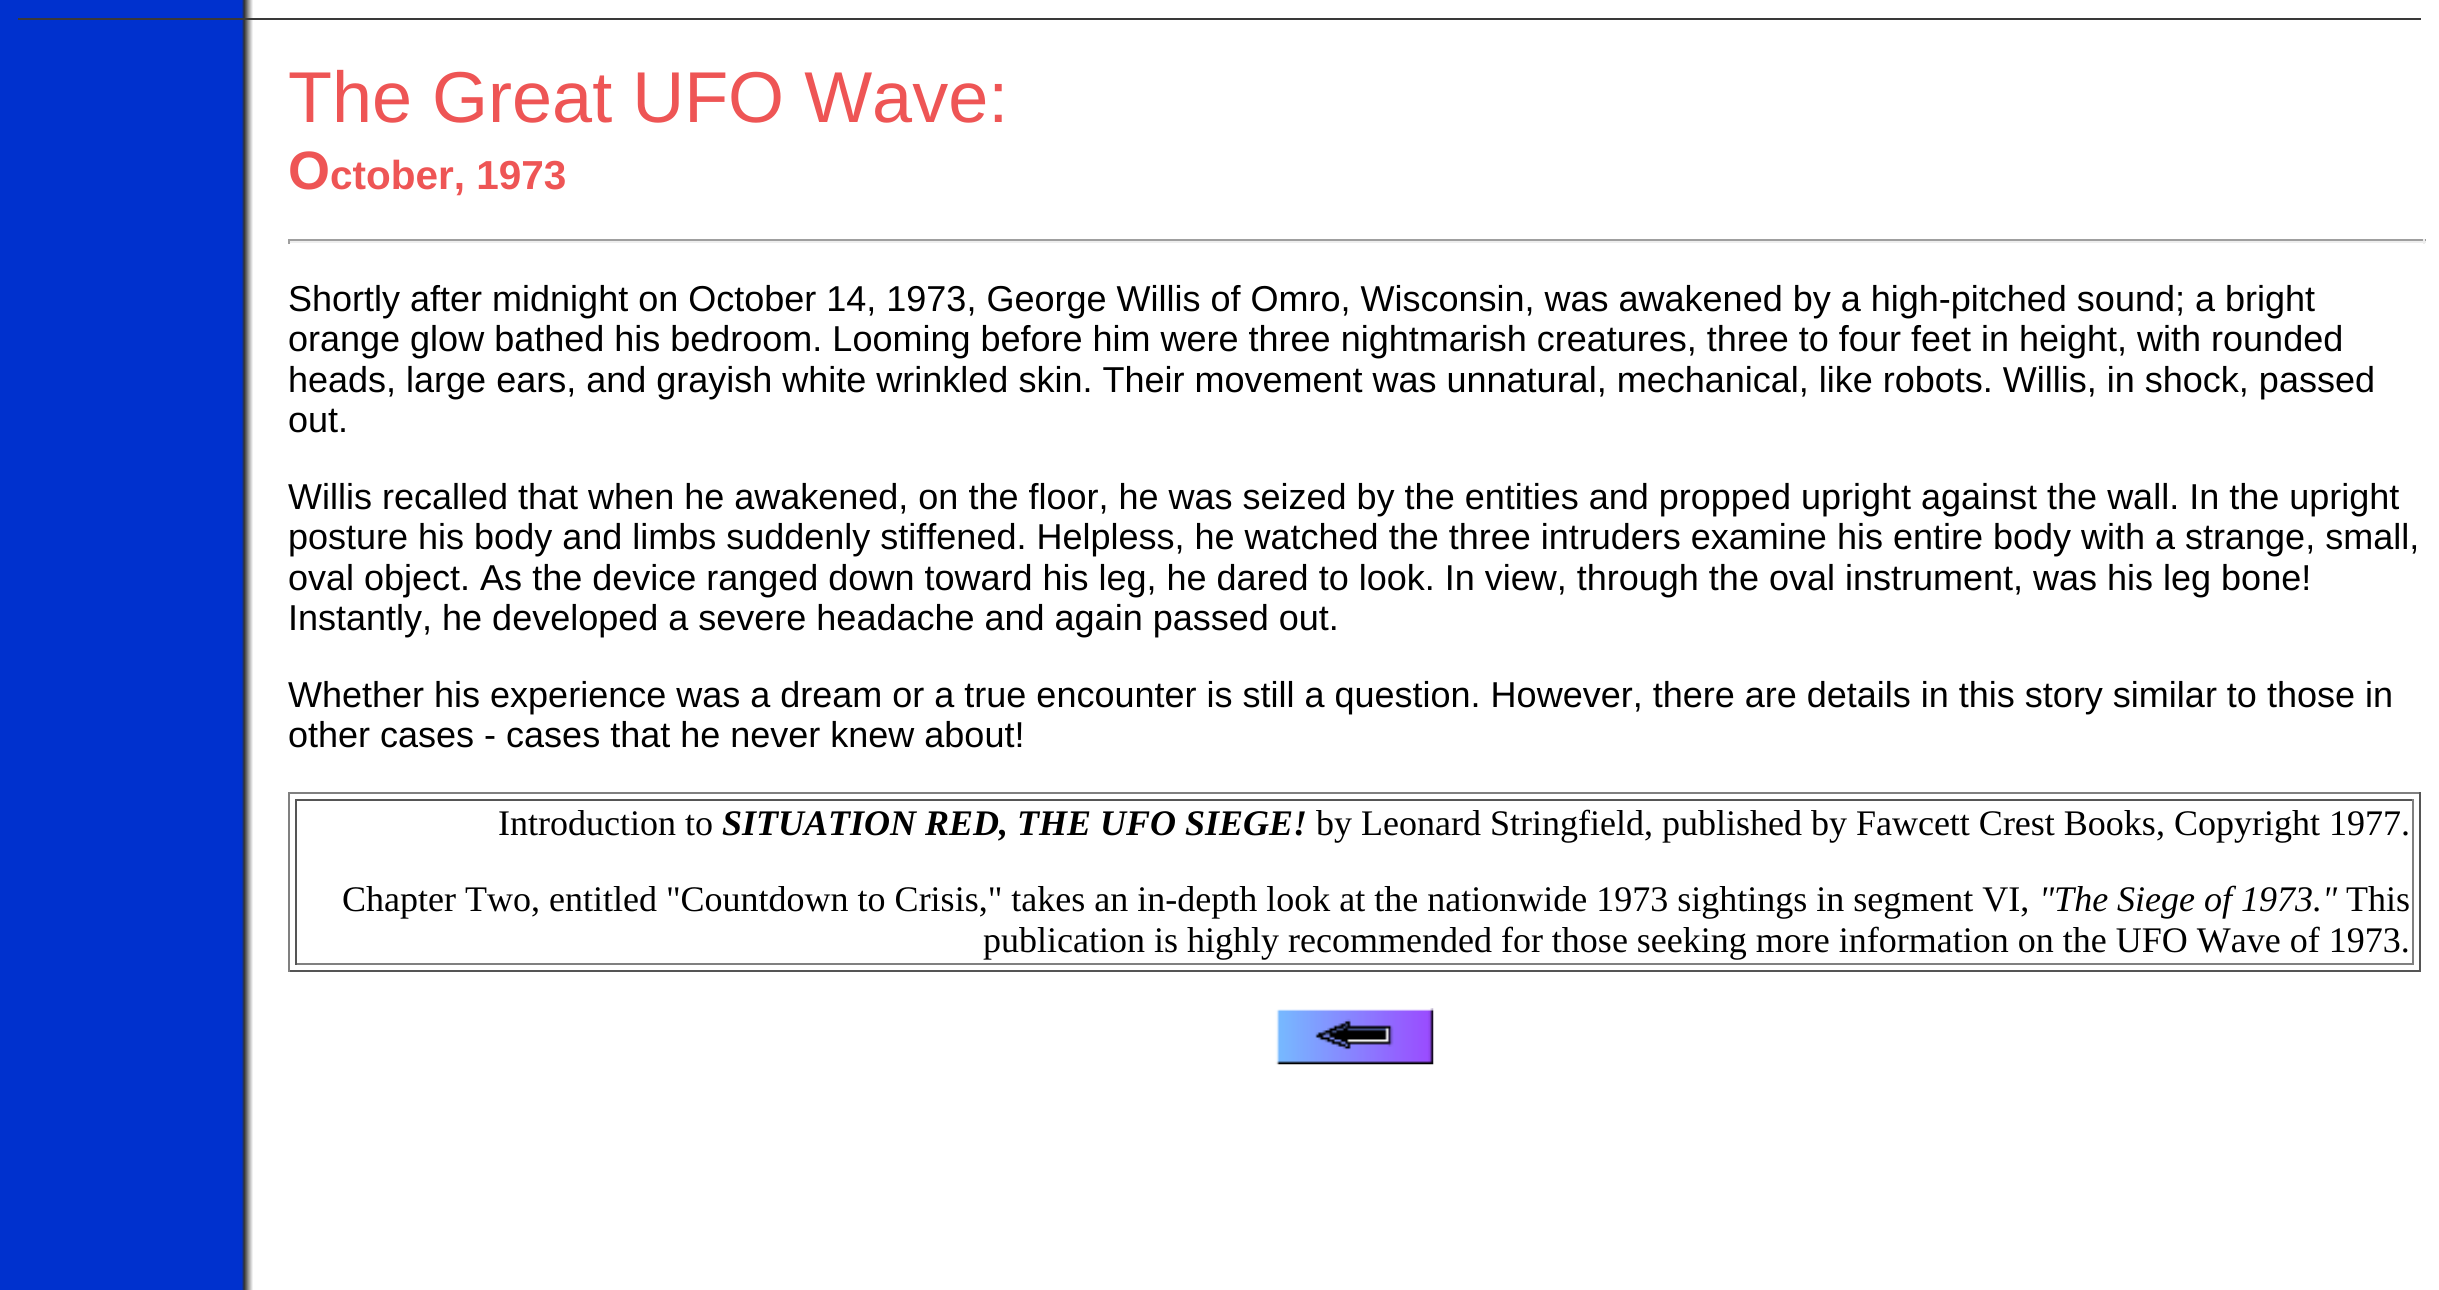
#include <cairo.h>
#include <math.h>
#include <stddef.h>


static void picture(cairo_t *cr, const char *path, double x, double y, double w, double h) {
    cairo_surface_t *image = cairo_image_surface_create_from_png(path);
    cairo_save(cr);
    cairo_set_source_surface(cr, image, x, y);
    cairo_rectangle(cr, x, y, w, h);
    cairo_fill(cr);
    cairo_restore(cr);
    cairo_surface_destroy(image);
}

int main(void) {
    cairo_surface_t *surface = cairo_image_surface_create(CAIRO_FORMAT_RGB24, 2439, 1290);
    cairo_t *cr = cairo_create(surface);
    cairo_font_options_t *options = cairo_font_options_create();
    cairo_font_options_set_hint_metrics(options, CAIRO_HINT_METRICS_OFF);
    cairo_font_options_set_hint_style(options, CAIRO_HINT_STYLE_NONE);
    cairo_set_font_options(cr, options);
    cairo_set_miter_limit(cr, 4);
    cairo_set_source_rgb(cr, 1, 1, 1);
    cairo_paint(cr);
    picture(cr, "img1.png", 0, 0, 2439, 1290);
    cairo_set_source_rgb(cr, 0.224, 0.224, 0.224);
    cairo_rectangle(cr, 18, 18, 2403, 2);
    cairo_fill(cr);
    cairo_select_font_face(cr, "Liberation Sans", CAIRO_FONT_SLANT_NORMAL, CAIRO_FONT_WEIGHT_NORMAL);
    cairo_set_font_size(cr, 72);
    cairo_set_source_rgb(cr, 0.933, 0.333, 0.333);
    cairo_move_to(cr, 288, 122);
    cairo_show_text(cr, "The Great UFO Wave:");
    cairo_select_font_face(cr, "Liberation Sans", CAIRO_FONT_SLANT_NORMAL, CAIRO_FONT_WEIGHT_BOLD);
    cairo_set_font_size(cr, 54);
    cairo_move_to(cr, 288, 189);
    cairo_show_text(cr, "O");
    cairo_set_font_size(cr, 40.5);
    cairo_move_to(cr, 330, 189);
    cairo_show_text(cr, "ctober, 1973");
    cairo_set_source_rgb(cr, 0.624, 0.624, 0.624);
    cairo_rectangle(cr, 288, 239, 2138, 2);
    cairo_fill(cr);
    cairo_set_source_rgb(cr, 0.933, 0.933, 0.933);
    cairo_rectangle(cr, 2423, 239, 2, 5);
    cairo_fill(cr);
    cairo_rectangle(cr, 288, 241, 2138, 2);
    cairo_fill(cr);
    cairo_set_source_rgb(cr, 0.624, 0.624, 0.624);
    cairo_rectangle(cr, 288, 239, 2, 5);
    cairo_fill(cr);
    cairo_select_font_face(cr, "Liberation Sans", CAIRO_FONT_SLANT_NORMAL, CAIRO_FONT_WEIGHT_NORMAL);
    cairo_set_font_size(cr, 36);
    cairo_set_source_rgb(cr, 0, 0, 0);
    cairo_move_to(cr, 288, 311);
    cairo_show_text(cr, "Shortly after midnight on October 14, 1973, George Willis of Omro, Wisconsin, was awakened by a high-pitched sound; a bright");
    cairo_move_to(cr, 288, 351);
    cairo_show_text(cr, "orange glow bathed his bedroom. Looming before him were three nightmarish creatures, three to four feet in height, with rounded");
    cairo_move_to(cr, 288, 392);
    cairo_show_text(cr, "heads, large ears, and grayish white wrinkled skin. Their movement was unnatural, mechanical, like robots. Willis, in shock, passed");
    cairo_move_to(cr, 288, 432);
    cairo_show_text(cr, "out.");
    cairo_move_to(cr, 288, 509);
    cairo_show_text(cr, "Willis recalled that when he awakened, on the floor, he was seized by the entities and propped upright against the wall. In the upright");
    cairo_move_to(cr, 288, 549);
    cairo_show_text(cr, "posture his body and limbs suddenly stiffened. Helpless, he watched the three intruders examine his entire body with a strange, small,");
    cairo_move_to(cr, 288, 590);
    cairo_show_text(cr, "oval object. As the device ranged down toward his leg, he dared to look. In view, through the oval instrument, was his leg bone!");
    cairo_move_to(cr, 288, 630);
    cairo_show_text(cr, "Instantly, he developed a severe headache and again passed out.");
    cairo_move_to(cr, 288, 707);
    cairo_show_text(cr, "Whether his experience was a dream or a true encounter is still a question. However, there are details in this story similar to those in");
    cairo_move_to(cr, 288, 747);
    cairo_show_text(cr, "other cases - cases that he never knew about!");
    cairo_set_source_rgb(cr, 0.502, 0.502, 0.502);
    cairo_rectangle(cr, 288, 792, 2133, 2);
    cairo_fill(cr);
    cairo_set_source_rgb(cr, 0.333, 0.333, 0.333);
    cairo_rectangle(cr, 2419, 792, 2, 180);
    cairo_fill(cr);
    cairo_rectangle(cr, 288, 970, 2133, 2);
    cairo_fill(cr);
    cairo_set_source_rgb(cr, 0.502, 0.502, 0.502);
    cairo_rectangle(cr, 288, 792, 2, 180);
    cairo_fill(cr);
    cairo_set_source_rgb(cr, 0.333, 0.333, 0.333);
    cairo_rectangle(cr, 295, 799, 2119, 2);
    cairo_fill(cr);
    cairo_set_source_rgb(cr, 0.502, 0.502, 0.502);
    cairo_rectangle(cr, 2412, 799, 2, 166);
    cairo_fill(cr);
    cairo_rectangle(cr, 295, 963, 2119, 2);
    cairo_fill(cr);
    cairo_set_source_rgb(cr, 0.333, 0.333, 0.333);
    cairo_rectangle(cr, 295, 799, 2, 166);
    cairo_fill(cr);
    cairo_select_font_face(cr, "Liberation Serif", CAIRO_FONT_SLANT_NORMAL, CAIRO_FONT_WEIGHT_NORMAL);
    cairo_set_source_rgb(cr, 0, 0, 0);
    cairo_move_to(cr, 498, 835);
    cairo_show_text(cr, "Introduction to");
    cairo_select_font_face(cr, "Liberation Serif", CAIRO_FONT_SLANT_ITALIC, CAIRO_FONT_WEIGHT_BOLD);
    cairo_move_to(cr, 722, 835);
    cairo_show_text(cr, "SITUATION RED, THE UFO SIEGE!");
    cairo_select_font_face(cr, "Liberation Serif", CAIRO_FONT_SLANT_NORMAL, CAIRO_FONT_WEIGHT_NORMAL);
    cairo_move_to(cr, 1316, 835);
    cairo_show_text(cr, "by Leonard Stringfield, published by Fawcett Crest Books, Copyright 1977.");
    cairo_move_to(cr, 342, 911);
    cairo_show_text(cr, "Chapter Two, entitled \"Countdown to Crisis,\" takes an in-depth look at the nationwide 1973 sightings in segment VI,");
    cairo_select_font_face(cr, "Liberation Serif", CAIRO_FONT_SLANT_ITALIC, CAIRO_FONT_WEIGHT_NORMAL);
    cairo_move_to(cr, 2039, 911);
    cairo_show_text(cr, "\"The Siege of 1973.\"");
    cairo_select_font_face(cr, "Liberation Serif", CAIRO_FONT_SLANT_NORMAL, CAIRO_FONT_WEIGHT_NORMAL);
    cairo_move_to(cr, 2346, 911);
    cairo_show_text(cr, "This");
    cairo_move_to(cr, 983, 952);
    cairo_show_text(cr, "publication is highly recommended for those seeking more information on the UFO Wave of 1973.");
    picture(cr, "img2.png", 1275, 1008, 159, 57);
    cairo_surface_write_to_png(surface, "page.png");
    cairo_font_options_destroy(options);
    cairo_destroy(cr);
    cairo_surface_destroy(surface);
    return 0;
}
